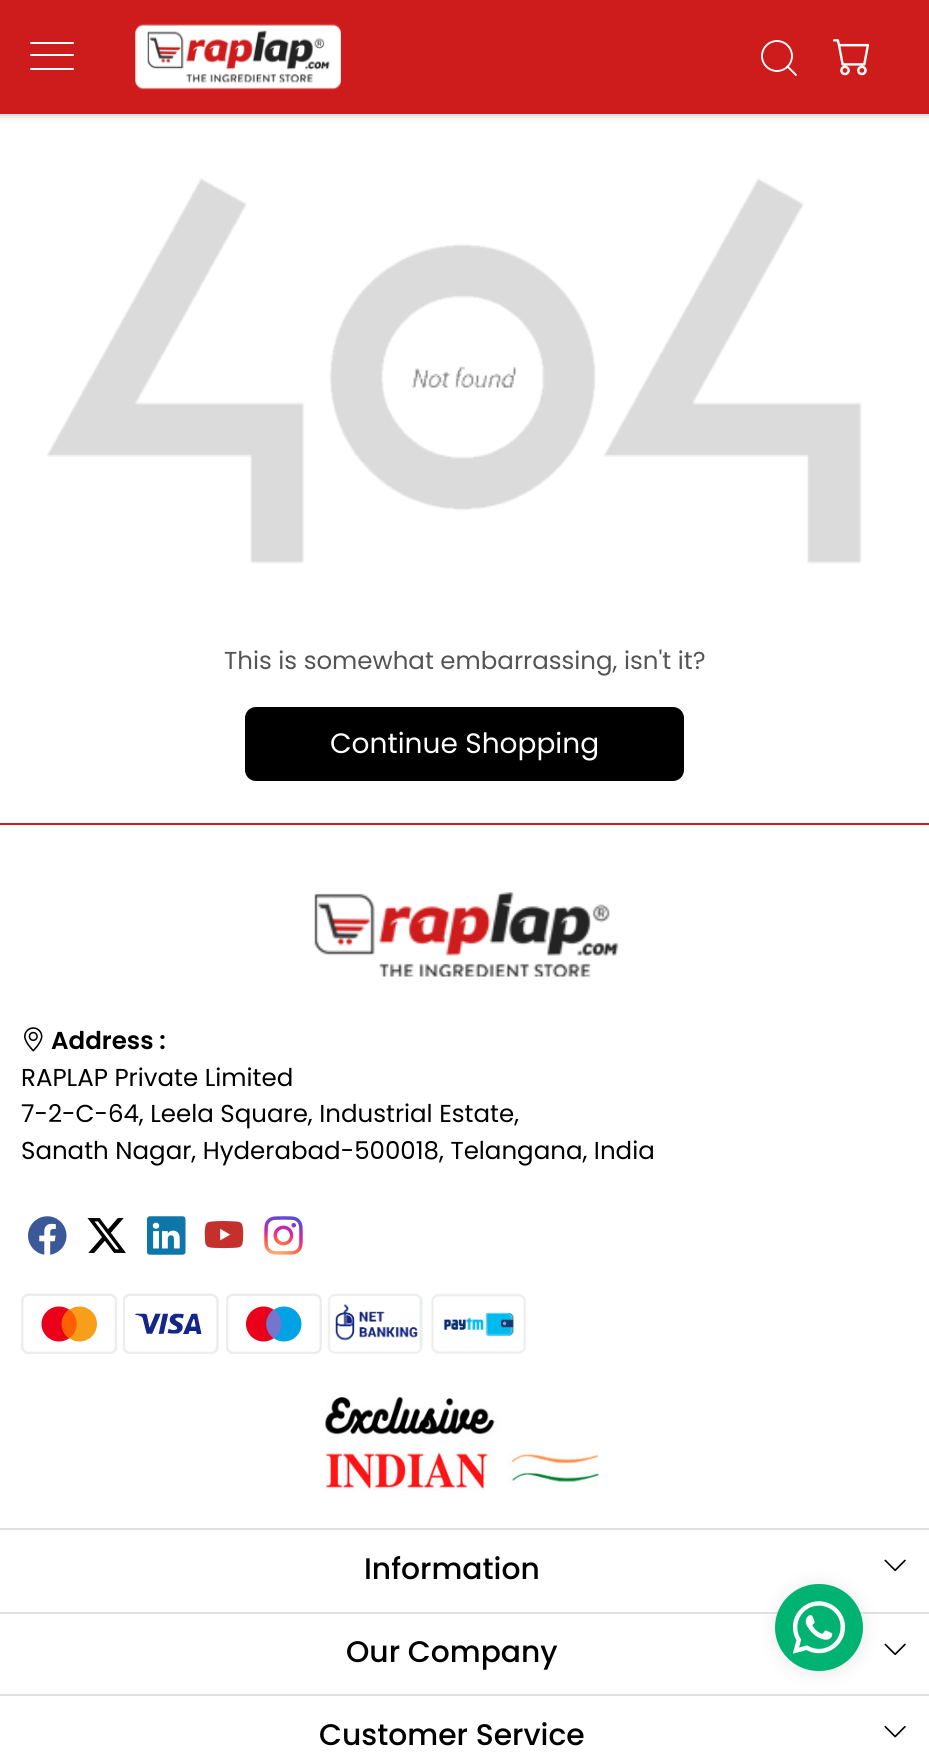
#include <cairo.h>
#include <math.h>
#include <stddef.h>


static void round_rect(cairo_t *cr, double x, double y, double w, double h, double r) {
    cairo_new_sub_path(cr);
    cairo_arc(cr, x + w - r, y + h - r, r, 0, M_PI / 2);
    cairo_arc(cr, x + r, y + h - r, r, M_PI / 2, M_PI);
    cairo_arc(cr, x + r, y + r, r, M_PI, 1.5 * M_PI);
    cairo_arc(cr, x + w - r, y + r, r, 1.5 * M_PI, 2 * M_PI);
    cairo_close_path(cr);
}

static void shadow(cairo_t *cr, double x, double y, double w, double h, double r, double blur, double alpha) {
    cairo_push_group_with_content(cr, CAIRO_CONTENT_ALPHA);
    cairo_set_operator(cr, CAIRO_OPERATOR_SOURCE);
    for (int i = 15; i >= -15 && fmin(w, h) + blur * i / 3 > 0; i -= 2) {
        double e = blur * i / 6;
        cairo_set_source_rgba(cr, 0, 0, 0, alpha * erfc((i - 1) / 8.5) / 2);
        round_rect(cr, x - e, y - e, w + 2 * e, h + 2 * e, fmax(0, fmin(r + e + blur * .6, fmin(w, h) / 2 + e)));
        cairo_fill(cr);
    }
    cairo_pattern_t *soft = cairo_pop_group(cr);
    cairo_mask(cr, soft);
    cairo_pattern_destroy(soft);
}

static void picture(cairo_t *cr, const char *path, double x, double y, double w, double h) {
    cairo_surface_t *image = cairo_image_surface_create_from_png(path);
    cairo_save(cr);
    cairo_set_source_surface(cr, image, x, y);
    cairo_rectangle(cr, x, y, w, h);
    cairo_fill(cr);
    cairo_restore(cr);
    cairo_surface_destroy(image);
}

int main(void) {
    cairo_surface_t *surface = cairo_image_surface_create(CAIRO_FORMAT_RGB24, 929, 1763);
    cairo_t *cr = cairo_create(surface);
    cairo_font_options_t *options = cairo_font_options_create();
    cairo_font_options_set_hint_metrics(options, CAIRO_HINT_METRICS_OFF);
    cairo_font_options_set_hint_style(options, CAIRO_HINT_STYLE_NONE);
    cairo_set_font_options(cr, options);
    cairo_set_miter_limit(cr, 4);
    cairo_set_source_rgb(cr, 1, 1, 1);
    cairo_paint(cr);
    cairo_set_source_rgb(cr, 0.02, 0.02, 0.039);
    shadow(cr, 0, 0, 929, 117, 0, 4.5, 0.08);
    cairo_set_source_rgb(cr, 0.933, 0.933, 0.933);
    cairo_rectangle(cr, 0, 116, 929, 2);
    cairo_fill(cr);
    cairo_set_source_rgb(cr, 0.808, 0.106, 0.106);
    cairo_rectangle(cr, 0, 0, 929, 114);
    cairo_fill(cr);
    cairo_set_source_rgb(cr, 1, 1, 1);
    round_rect(cr, 30, 68, 44, 2, 1);
    cairo_fill(cr);
    round_rect(cr, 30, 54, 44, 2, 1);
    cairo_fill(cr);
    round_rect(cr, 30, 42, 44, 2, 1);
    cairo_fill(cr);
    picture(cr, "img1.png", 135, 23, 206, 67);
    cairo_arc(cr, 777, 56, 15, 0, 2 * M_PI);
    cairo_set_line_width(cr, 1.9);
    cairo_stroke(cr);
    cairo_new_path(cr);
    cairo_move_to(cr, 796, 75);
    cairo_line_to(cr, 787.5, 66.5);
    cairo_set_line_cap(cr, CAIRO_LINE_CAP_ROUND);
    cairo_set_line_join(cr, CAIRO_LINE_JOIN_ROUND);
    cairo_stroke(cr);
    picture(cr, "img2.png", 833, 39, 37, 37);
    cairo_set_source_rgb(cr, 0.871, 0.886, 0.902);
    cairo_rectangle(cr, 0, 114, 929, 2);
    cairo_fill(cr);
    picture(cr, "img3.png", 46, 178, 816, 386);
    cairo_select_font_face(cr, "Poppins", CAIRO_FONT_SLANT_NORMAL, CAIRO_FONT_WEIGHT_NORMAL);
    cairo_set_font_size(cr, 24.5);
    cairo_set_source_rgb(cr, 0.329, 0.329, 0.329);
    cairo_move_to(cr, 224, 669);
    cairo_show_text(cr, "This is somewhat embarrassing, isn't it?");
    cairo_set_source_rgb(cr, 0, 0, 0);
    round_rect(cr, 246, 708, 437, 72, 10);
    cairo_fill_preserve(cr);
    cairo_set_line_width(cr, 2);
    cairo_set_line_cap(cr, CAIRO_LINE_CAP_BUTT);
    cairo_set_line_join(cr, CAIRO_LINE_JOIN_MITER);
    cairo_stroke(cr);
    cairo_set_font_size(cr, 28);
    cairo_set_source_rgb(cr, 1, 1, 1);
    cairo_move_to(cr, 330, 753);
    cairo_show_text(cr, "Continue Shopping");
    cairo_set_source_rgb(cr, 0.808, 0.106, 0.106);
    cairo_rectangle(cr, 0, 823, 929, 2);
    cairo_fill(cr);
    picture(cr, "img4.png", 314, 892, 305, 85);
    picture(cr, "img5.png", 24, 1027, 19, 25);
    cairo_select_font_face(cr, "Poppins SemiBold", CAIRO_FONT_SLANT_NORMAL, CAIRO_FONT_WEIGHT_NORMAL);
    cairo_set_font_size(cr, 24.5);
    cairo_set_source_rgb(cr, 0, 0, 0);
    cairo_move_to(cr, 51, 1049);
    cairo_show_text(cr, "Address :");
    cairo_select_font_face(cr, "Poppins", CAIRO_FONT_SLANT_NORMAL, CAIRO_FONT_WEIGHT_NORMAL);
    cairo_move_to(cr, 21, 1086);
    cairo_show_text(cr, "RAPLAP Private Limited");
    cairo_move_to(cr, 21, 1122);
    cairo_show_text(cr, "7-2-C-64, Leela Square, Industrial Estate,");
    cairo_move_to(cr, 21, 1159);
    cairo_show_text(cr, "Sanath Nagar, Hyderabad-500018, Telangana, India");
    picture(cr, "img6.png", 28, 1216, 39, 39);
    picture(cr, "img7.png", 87, 1218, 39, 35);
    picture(cr, "img8.png", 147, 1216, 39, 39);
    picture(cr, "img9.png", 204, 1221, 40, 28);
    picture(cr, "img10.png", 264, 1216, 39, 39);
    picture(cr, "img11.png", 21, 1293, 96, 61);
    picture(cr, "img12.png", 123, 1293, 96, 61);
    picture(cr, "img13.png", 226, 1293, 96, 61);
    picture(cr, "img14.png", 327, 1293, 96, 61);
    picture(cr, "img15.png", 431, 1293, 95, 61);
    picture(cr, "img16.png", 324, 1394, 275, 97);
    cairo_set_source_rgb(cr, 0.878, 0.878, 0.878);
    cairo_rectangle(cr, 0, 1528, 929, 2);
    cairo_fill(cr);
    cairo_rectangle(cr, 0, 1612, 929, 2);
    cairo_fill(cr);
    cairo_select_font_face(cr, "Poppins Medium", CAIRO_FONT_SLANT_NORMAL, CAIRO_FONT_WEIGHT_NORMAL);
    cairo_set_font_size(cr, 29.75);
    cairo_set_source_rgb(cr, 0, 0, 0);
    cairo_move_to(cr, 364, 1579);
    cairo_show_text(cr, "Information");
    picture(cr, "img17.png", 884, 1559, 22, 13);
    cairo_set_source_rgb(cr, 0.878, 0.878, 0.878);
    cairo_rectangle(cr, 0, 1694, 929, 2);
    cairo_fill(cr);
    cairo_set_source_rgb(cr, 0, 0, 0);
    cairo_move_to(cr, 346, 1662);
    cairo_show_text(cr, "Our Company");
    picture(cr, "img17.png", 884, 1643, 22, 13);
    cairo_move_to(cr, 319, 1745);
    cairo_show_text(cr, "Customer Service");
    picture(cr, "img18.png", 884, 1725, 22, 13);
    cairo_set_source_rgb(cr, 0.831, 0.831, 0.831);
    shadow(cr, 774, 1584, 91, 91, 45.5, 8, 0.44);
    cairo_set_source_rgb(cr, 0, 0.702, 0.451);
    round_rect(cr, 775, 1584, 88, 87, 43.5);
    cairo_fill(cr);
    picture(cr, "img19.png", 792, 1601, 54, 53);
    cairo_surface_write_to_png(surface, "page.png");
    cairo_font_options_destroy(options);
    cairo_destroy(cr);
    cairo_surface_destroy(surface);
    return 0;
}
